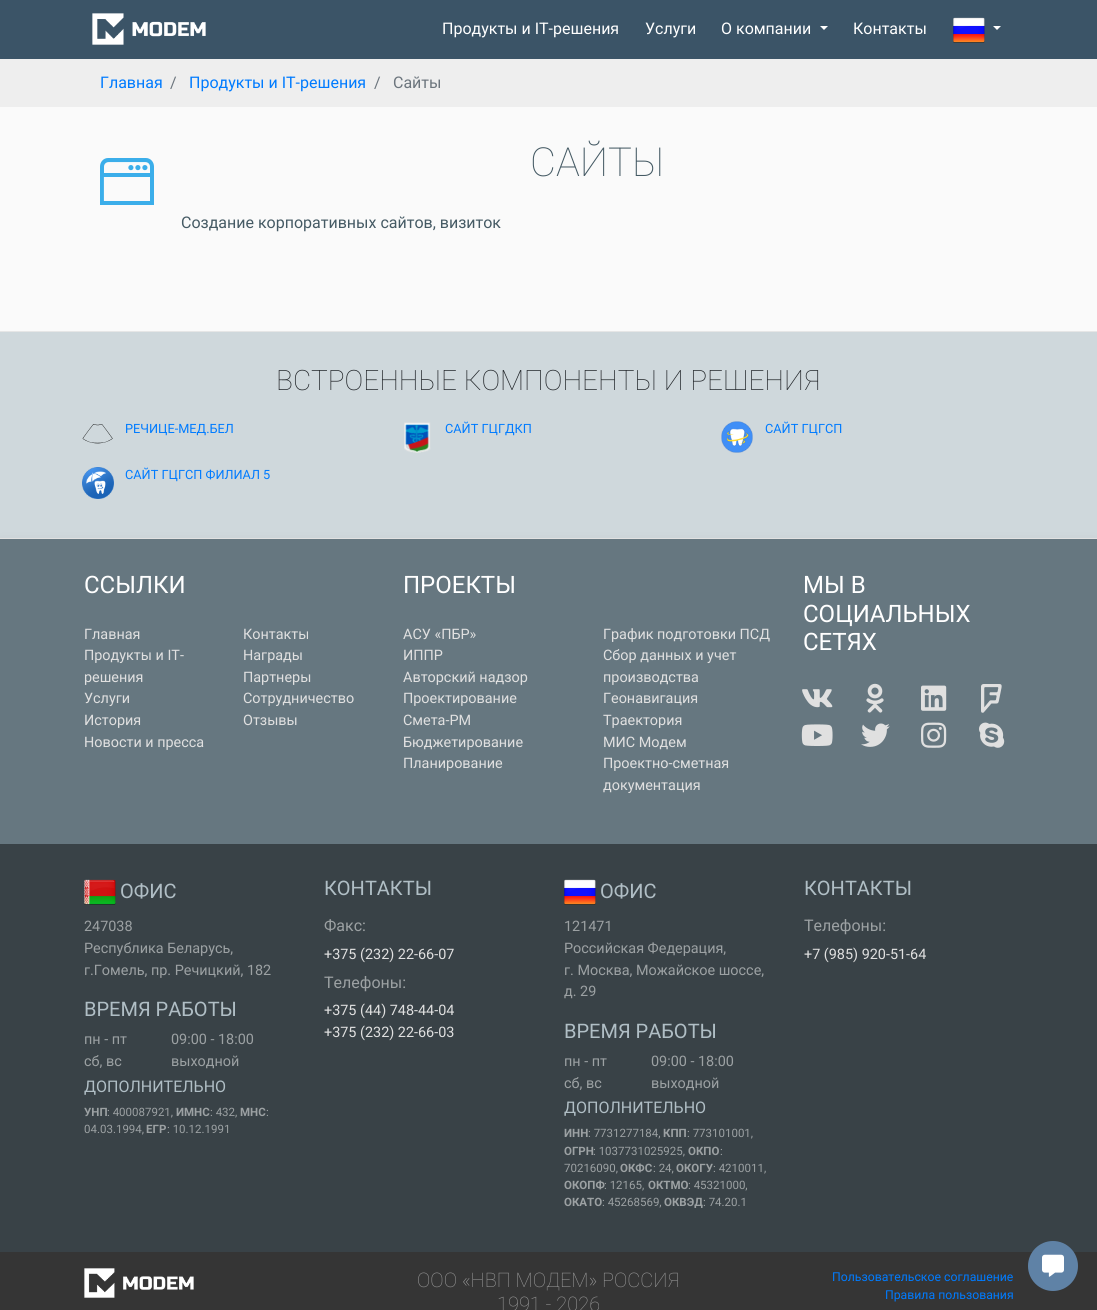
#include <cairo.h>
#include <math.h>
#include <stddef.h>


static void round_rect(cairo_t *cr, double x, double y, double w, double h, double r) {
    cairo_new_sub_path(cr);
    cairo_arc(cr, x + w - r, y + h - r, r, 0, M_PI / 2);
    cairo_arc(cr, x + r, y + h - r, r, M_PI / 2, M_PI);
    cairo_arc(cr, x + r, y + r, r, M_PI, 1.5 * M_PI);
    cairo_arc(cr, x + w - r, y + r, r, 1.5 * M_PI, 2 * M_PI);
    cairo_close_path(cr);
}

static void shadow(cairo_t *cr, double x, double y, double w, double h, double r, double blur, double alpha) {
    cairo_push_group_with_content(cr, CAIRO_CONTENT_ALPHA);
    cairo_set_operator(cr, CAIRO_OPERATOR_SOURCE);
    for (int i = 15; i >= -15 && fmin(w, h) + blur * i / 3 > 0; i -= 2) {
        double e = blur * i / 6;
        cairo_set_source_rgba(cr, 0, 0, 0, alpha * erfc((i - 1) / 8.5) / 2);
        round_rect(cr, x - e, y - e, w + 2 * e, h + 2 * e, fmax(0, fmin(r + e + blur * .6, fmin(w, h) / 2 + e)));
        cairo_fill(cr);
    }
    cairo_pattern_t *soft = cairo_pop_group(cr);
    cairo_mask(cr, soft);
    cairo_pattern_destroy(soft);
}

static void picture(cairo_t *cr, const char *path, double x, double y, double w, double h) {
    cairo_surface_t *image = cairo_image_surface_create_from_png(path);
    cairo_save(cr);
    cairo_set_source_surface(cr, image, x, y);
    cairo_rectangle(cr, x, y, w, h);
    cairo_fill(cr);
    cairo_restore(cr);
    cairo_surface_destroy(image);
}

int main(void) {
    cairo_surface_t *surface = cairo_image_surface_create(CAIRO_FORMAT_RGB24, 1097, 1310);
    cairo_t *cr = cairo_create(surface);
    cairo_font_options_t *options = cairo_font_options_create();
    cairo_font_options_set_hint_metrics(options, CAIRO_HINT_METRICS_OFF);
    cairo_font_options_set_hint_style(options, CAIRO_HINT_STYLE_NONE);
    cairo_set_font_options(cr, options);
    cairo_set_miter_limit(cr, 4);
    cairo_set_source_rgb(cr, 0.933, 0.933, 0.933);
    cairo_paint(cr);
    cairo_set_source_rgb(cr, 0.231, 0.329, 0.404);
    cairo_rectangle(cr, 0, 0, 1097, 59);
    cairo_fill(cr);
    picture(cr, "img1.png", 92, 13, 114, 32);
    cairo_select_font_face(cr, "Roboto", CAIRO_FONT_SLANT_NORMAL, CAIRO_FONT_WEIGHT_NORMAL);
    cairo_set_font_size(cr, 16);
    cairo_set_source_rgb(cr, 1, 1, 1);
    cairo_move_to(cr, 442, 34);
    cairo_show_text(cr, "Продукты и IT-решения");
    cairo_move_to(cr, 645, 34);
    cairo_show_text(cr, "Услуги");
    cairo_move_to(cr, 721, 34);
    cairo_show_text(cr, "О компании");
    cairo_new_path(cr);
    cairo_move_to(cr, 820, 26);
    cairo_line_to(cr, 828, 26);
    cairo_line_to(cr, 824, 30);
    cairo_close_path(cr);
    cairo_fill(cr);
    cairo_move_to(cr, 853, 34);
    cairo_show_text(cr, "Контакты");
    picture(cr, "img2.png", 953, 17, 32, 26);
    cairo_new_path(cr);
    cairo_move_to(cr, 993, 26);
    cairo_line_to(cr, 1001, 26);
    cairo_line_to(cr, 997, 30);
    cairo_close_path(cr);
    cairo_fill(cr);
    cairo_set_source_rgb(cr, 0, 0.482, 1);
    cairo_move_to(cr, 100, 88);
    cairo_show_text(cr, "Главная");
    cairo_set_source_rgb(cr, 0.424, 0.459, 0.49);
    cairo_move_to(cr, 170, 88);
    cairo_show_text(cr, "/");
    cairo_set_source_rgb(cr, 0, 0.482, 1);
    cairo_move_to(cr, 189, 88);
    cairo_show_text(cr, "Продукты и IT-решения");
    cairo_set_source_rgb(cr, 0.424, 0.459, 0.49);
    cairo_move_to(cr, 374, 88);
    cairo_show_text(cr, "/");
    cairo_move_to(cr, 393, 88);
    cairo_show_text(cr, "Сайты");
    cairo_set_source_rgb(cr, 0.98, 0.98, 0.98);
    cairo_rectangle(cr, 0, 107, 1097, 224);
    cairo_fill(cr);
    picture(cr, "img3.png", 100, 158, 54, 47);
    cairo_select_font_face(cr, "Roboto Thin", CAIRO_FONT_SLANT_NORMAL, CAIRO_FONT_WEIGHT_NORMAL);
    cairo_set_font_size(cr, 40);
    cairo_set_source_rgb(cr, 0.271, 0.353, 0.392);
    cairo_move_to(cr, 530, 176);
    cairo_show_text(cr, "САЙТЫ");
    cairo_select_font_face(cr, "Roboto", CAIRO_FONT_SLANT_NORMAL, CAIRO_FONT_WEIGHT_NORMAL);
    cairo_set_font_size(cr, 16);
    cairo_move_to(cr, 181, 228);
    cairo_show_text(cr, "Создание корпоративных сайтов, визиток");
    cairo_set_source_rgb(cr, 0.902, 0.902, 0.902);
    cairo_rectangle(cr, 0, 331, 1097, 1);
    cairo_fill(cr);
    cairo_set_source_rgb(cr, 0.812, 0.847, 0.863);
    cairo_rectangle(cr, 0, 332, 1097, 206);
    cairo_fill(cr);
    cairo_select_font_face(cr, "Roboto Thin", CAIRO_FONT_SLANT_NORMAL, CAIRO_FONT_WEIGHT_NORMAL);
    cairo_set_font_size(cr, 28);
    cairo_set_source_rgb(cr, 0.129, 0.145, 0.161);
    cairo_move_to(cr, 276, 390);
    cairo_show_text(cr, "ВСТРОЕННЫЕ КОМПОНЕНТЫ И РЕШЕНИЯ");
    picture(cr, "img4.png", 82, 424, 31, 20);
    cairo_select_font_face(cr, "Roboto", CAIRO_FONT_SLANT_NORMAL, CAIRO_FONT_WEIGHT_NORMAL);
    cairo_set_font_size(cr, 12.75);
    cairo_set_source_rgb(cr, 0, 0.482, 1);
    cairo_move_to(cr, 125, 433);
    cairo_show_text(cr, "РЕЧИЦЕ-МЕД.БЕЛ");
    picture(cr, "img5.png", 404, 422, 27, 31);
    cairo_move_to(cr, 445, 433);
    cairo_show_text(cr, "САЙТ ГЦГДКП");
    picture(cr, "img6.png", 721, 421, 32, 32);
    cairo_move_to(cr, 765, 433);
    cairo_show_text(cr, "САЙТ ГЦГСП");
    picture(cr, "img7.png", 82, 467, 32, 32);
    cairo_move_to(cr, 125, 479);
    cairo_show_text(cr, "САЙТ ГЦГСП ФИЛИАЛ 5");
    cairo_set_source_rgb(cr, 0.902, 0.902, 0.902);
    cairo_rectangle(cr, 0, 538, 1097, 1);
    cairo_fill(cr);
    cairo_set_source_rgb(cr, 0, 0, 0);
    shadow(cr, 0, 547, 1097, 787, 0, 8, 0.15);
    cairo_set_source_rgb(cr, 0.4, 0.467, 0.502);
    cairo_rectangle(cr, 0, 539, 1097, 305);
    cairo_fill(cr);
    cairo_set_font_size(cr, 24);
    cairo_set_source_rgb(cr, 1, 1, 1);
    cairo_move_to(cr, 84, 593);
    cairo_show_text(cr, "ССЫЛКИ");
    cairo_set_font_size(cr, 14.4);
    cairo_set_source_rgb(cr, 0.878, 0.878, 0.878);
    cairo_move_to(cr, 84, 639);
    cairo_show_text(cr, "Главная");
    cairo_move_to(cr, 84, 660);
    cairo_show_text(cr, "Продукты и IT-");
    cairo_move_to(cr, 84, 682);
    cairo_show_text(cr, "решения");
    cairo_move_to(cr, 84, 703);
    cairo_show_text(cr, "Услуги");
    cairo_move_to(cr, 84, 725);
    cairo_show_text(cr, "История");
    cairo_move_to(cr, 84, 747);
    cairo_show_text(cr, "Новости и пресса");
    cairo_move_to(cr, 243, 639);
    cairo_show_text(cr, "Контакты");
    cairo_move_to(cr, 243, 660);
    cairo_show_text(cr, "Награды");
    cairo_move_to(cr, 243, 682);
    cairo_show_text(cr, "Партнеры");
    cairo_move_to(cr, 243, 703);
    cairo_show_text(cr, "Сотрудничество");
    cairo_move_to(cr, 243, 725);
    cairo_show_text(cr, "Отзывы");
    cairo_set_font_size(cr, 24);
    cairo_set_source_rgb(cr, 1, 1, 1);
    cairo_move_to(cr, 403, 593);
    cairo_show_text(cr, "ПРОЕКТЫ");
    cairo_set_font_size(cr, 14.4);
    cairo_set_source_rgb(cr, 0.878, 0.878, 0.878);
    cairo_move_to(cr, 403, 639);
    cairo_show_text(cr, "АСУ «ПБР»");
    cairo_move_to(cr, 403, 660);
    cairo_show_text(cr, "ИППР");
    cairo_move_to(cr, 403, 682);
    cairo_show_text(cr, "Авторский надзор");
    cairo_move_to(cr, 403, 703);
    cairo_show_text(cr, "Проектирование");
    cairo_move_to(cr, 403, 725);
    cairo_show_text(cr, "Смета-РМ");
    cairo_move_to(cr, 403, 747);
    cairo_show_text(cr, "Бюджетирование");
    cairo_move_to(cr, 403, 768);
    cairo_show_text(cr, "Планирование");
    cairo_move_to(cr, 603, 639);
    cairo_show_text(cr, "График подготовки ПСД");
    cairo_move_to(cr, 603, 660);
    cairo_show_text(cr, "Сбор данных и учет");
    cairo_move_to(cr, 603, 682);
    cairo_show_text(cr, "производства");
    cairo_move_to(cr, 603, 703);
    cairo_show_text(cr, "Геонавигация");
    cairo_move_to(cr, 603, 725);
    cairo_show_text(cr, "Траектория");
    cairo_move_to(cr, 603, 747);
    cairo_show_text(cr, "МИС Модем");
    cairo_move_to(cr, 603, 768);
    cairo_show_text(cr, "Проектно-сметная");
    cairo_move_to(cr, 603, 790);
    cairo_show_text(cr, "документация");
    cairo_set_font_size(cr, 24);
    cairo_set_source_rgb(cr, 1, 1, 1);
    cairo_move_to(cr, 803, 593);
    cairo_show_text(cr, "МЫ В");
    cairo_move_to(cr, 803, 622);
    cairo_show_text(cr, "СОЦИАЛЬНЫХ");
    cairo_move_to(cr, 803, 650);
    cairo_show_text(cr, "СЕТЯХ");
    picture(cr, "img8.png", 802, 689, 31, 19);
    picture(cr, "img9.png", 866, 683, 18, 30);
    picture(cr, "img10.png", 921, 685, 26, 26);
    picture(cr, "img11.png", 981, 684, 21, 29);
    picture(cr, "img12.png", 801, 724, 32, 22);
    picture(cr, "img13.png", 861, 723, 29, 24);
    picture(cr, "img14.png", 921, 722, 26, 26);
    picture(cr, "img15.png", 979, 722, 26, 26);
    cairo_set_source_rgb(cr, 0.224, 0.259, 0.278);
    cairo_rectangle(cr, 0, 844, 1097, 408);
    cairo_fill(cr);
    picture(cr, "img16.png", 84, 879, 32, 26);
    cairo_set_font_size(cr, 20);
    cairo_set_source_rgb(cr, 0.69, 0.745, 0.773);
    cairo_move_to(cr, 120, 898);
    cairo_show_text(cr, "ОФИС");
    cairo_set_font_size(cr, 14.4);
    cairo_set_source_rgb(cr, 0.612, 0.631, 0.639);
    cairo_move_to(cr, 84, 931);
    cairo_show_text(cr, "247038");
    cairo_move_to(cr, 84, 953);
    cairo_show_text(cr, "Республика Беларусь,");
    cairo_move_to(cr, 84, 975);
    cairo_show_text(cr, "г.Гомель, пр. Речицкий, 182");
    cairo_set_font_size(cr, 20);
    cairo_set_source_rgb(cr, 0.69, 0.745, 0.773);
    cairo_move_to(cr, 84, 1016);
    cairo_show_text(cr, "ВРЕМЯ РАБОТЫ");
    cairo_set_font_size(cr, 14.4);
    cairo_set_source_rgb(cr, 0.612, 0.631, 0.639);
    cairo_move_to(cr, 84, 1044);
    cairo_show_text(cr, "пн - пт");
    cairo_move_to(cr, 171, 1044);
    cairo_show_text(cr, "09:00 - 18:00");
    cairo_move_to(cr, 84, 1066);
    cairo_show_text(cr, "сб, вс");
    cairo_move_to(cr, 171, 1066);
    cairo_show_text(cr, "выходной");
    cairo_set_font_size(cr, 16);
    cairo_set_source_rgb(cr, 0.69, 0.745, 0.773);
    cairo_move_to(cr, 84, 1092);
    cairo_show_text(cr, "ДОПОЛНИТЕЛЬНО");
    cairo_select_font_face(cr, "Roboto", CAIRO_FONT_SLANT_NORMAL, CAIRO_FONT_WEIGHT_BOLD);
    cairo_set_font_size(cr, 11.5);
    cairo_set_source_rgb(cr, 0.612, 0.631, 0.639);
    cairo_move_to(cr, 84, 1116);
    cairo_show_text(cr, "УНП");
    cairo_select_font_face(cr, "Roboto", CAIRO_FONT_SLANT_NORMAL, CAIRO_FONT_WEIGHT_NORMAL);
    cairo_move_to(cr, 107, 1116);
    cairo_show_text(cr, ": 400087921,");
    cairo_select_font_face(cr, "Roboto", CAIRO_FONT_SLANT_NORMAL, CAIRO_FONT_WEIGHT_BOLD);
    cairo_move_to(cr, 176, 1116);
    cairo_show_text(cr, "ИМНС");
    cairo_select_font_face(cr, "Roboto", CAIRO_FONT_SLANT_NORMAL, CAIRO_FONT_WEIGHT_NORMAL);
    cairo_move_to(cr, 210, 1116);
    cairo_show_text(cr, ": 432,");
    cairo_select_font_face(cr, "Roboto", CAIRO_FONT_SLANT_NORMAL, CAIRO_FONT_WEIGHT_BOLD);
    cairo_move_to(cr, 240, 1116);
    cairo_show_text(cr, "МНС");
    cairo_select_font_face(cr, "Roboto", CAIRO_FONT_SLANT_NORMAL, CAIRO_FONT_WEIGHT_NORMAL);
    cairo_move_to(cr, 266, 1116);
    cairo_show_text(cr, ":");
    cairo_move_to(cr, 84, 1133);
    cairo_show_text(cr, "04.03.1994,");
    cairo_select_font_face(cr, "Roboto", CAIRO_FONT_SLANT_NORMAL, CAIRO_FONT_WEIGHT_BOLD);
    cairo_move_to(cr, 146, 1133);
    cairo_show_text(cr, "ЕГР");
    cairo_select_font_face(cr, "Roboto", CAIRO_FONT_SLANT_NORMAL, CAIRO_FONT_WEIGHT_NORMAL);
    cairo_move_to(cr, 167, 1133);
    cairo_show_text(cr, ": 10.12.1991");
    cairo_set_font_size(cr, 20);
    cairo_set_source_rgb(cr, 0.69, 0.745, 0.773);
    cairo_move_to(cr, 324, 895);
    cairo_show_text(cr, "КОНТАКТЫ");
    cairo_set_font_size(cr, 16);
    cairo_set_source_rgb(cr, 0.612, 0.631, 0.639);
    cairo_move_to(cr, 324, 931);
    cairo_show_text(cr, "Факс:");
    cairo_set_font_size(cr, 14.4);
    cairo_set_source_rgb(cr, 0.878, 0.878, 0.878);
    cairo_move_to(cr, 324, 959);
    cairo_show_text(cr, "+375 (232) 22-66-07");
    cairo_set_font_size(cr, 16);
    cairo_set_source_rgb(cr, 0.612, 0.631, 0.639);
    cairo_move_to(cr, 324, 988);
    cairo_show_text(cr, "Телефоны:");
    cairo_set_font_size(cr, 14.4);
    cairo_set_source_rgb(cr, 0.878, 0.878, 0.878);
    cairo_move_to(cr, 324, 1015);
    cairo_show_text(cr, "+375 (44) 748-44-04");
    cairo_move_to(cr, 324, 1037);
    cairo_show_text(cr, "+375 (232) 22-66-03");
    picture(cr, "img17.png", 564, 879, 32, 26);
    cairo_set_font_size(cr, 20);
    cairo_set_source_rgb(cr, 0.69, 0.745, 0.773);
    cairo_move_to(cr, 600, 898);
    cairo_show_text(cr, "ОФИС");
    cairo_set_font_size(cr, 14.4);
    cairo_set_source_rgb(cr, 0.612, 0.631, 0.639);
    cairo_move_to(cr, 564, 931);
    cairo_show_text(cr, "121471");
    cairo_move_to(cr, 564, 953);
    cairo_show_text(cr, "Российская Федерация,");
    cairo_move_to(cr, 564, 975);
    cairo_show_text(cr, "г. Москва, Можайское шоссе,");
    cairo_move_to(cr, 564, 996);
    cairo_show_text(cr, "д. 29");
    cairo_set_font_size(cr, 20);
    cairo_set_source_rgb(cr, 0.69, 0.745, 0.773);
    cairo_move_to(cr, 564, 1038);
    cairo_show_text(cr, "ВРЕМЯ РАБОТЫ");
    cairo_set_font_size(cr, 14.4);
    cairo_set_source_rgb(cr, 0.612, 0.631, 0.639);
    cairo_move_to(cr, 564, 1066);
    cairo_show_text(cr, "пн - пт");
    cairo_move_to(cr, 651, 1066);
    cairo_show_text(cr, "09:00 - 18:00");
    cairo_move_to(cr, 564, 1088);
    cairo_show_text(cr, "сб, вс");
    cairo_move_to(cr, 651, 1088);
    cairo_show_text(cr, "выходной");
    cairo_set_font_size(cr, 16);
    cairo_set_source_rgb(cr, 0.69, 0.745, 0.773);
    cairo_move_to(cr, 564, 1113);
    cairo_show_text(cr, "ДОПОЛНИТЕЛЬНО");
    cairo_select_font_face(cr, "Roboto", CAIRO_FONT_SLANT_NORMAL, CAIRO_FONT_WEIGHT_BOLD);
    cairo_set_font_size(cr, 11.5);
    cairo_set_source_rgb(cr, 0.612, 0.631, 0.639);
    cairo_move_to(cr, 564, 1137);
    cairo_show_text(cr, "ИНН");
    cairo_select_font_face(cr, "Roboto", CAIRO_FONT_SLANT_NORMAL, CAIRO_FONT_WEIGHT_NORMAL);
    cairo_move_to(cr, 588, 1137);
    cairo_show_text(cr, ": 7731277184,");
    cairo_select_font_face(cr, "Roboto", CAIRO_FONT_SLANT_NORMAL, CAIRO_FONT_WEIGHT_BOLD);
    cairo_move_to(cr, 663, 1137);
    cairo_show_text(cr, "КПП");
    cairo_select_font_face(cr, "Roboto", CAIRO_FONT_SLANT_NORMAL, CAIRO_FONT_WEIGHT_NORMAL);
    cairo_move_to(cr, 687, 1137);
    cairo_show_text(cr, ": 773101001,");
    cairo_select_font_face(cr, "Roboto", CAIRO_FONT_SLANT_NORMAL, CAIRO_FONT_WEIGHT_BOLD);
    cairo_move_to(cr, 564, 1155);
    cairo_show_text(cr, "ОГРН");
    cairo_select_font_face(cr, "Roboto", CAIRO_FONT_SLANT_NORMAL, CAIRO_FONT_WEIGHT_NORMAL);
    cairo_move_to(cr, 593, 1155);
    cairo_show_text(cr, ": 1037731025925,");
    cairo_select_font_face(cr, "Roboto", CAIRO_FONT_SLANT_NORMAL, CAIRO_FONT_WEIGHT_BOLD);
    cairo_move_to(cr, 688, 1155);
    cairo_show_text(cr, "ОКПО");
    cairo_select_font_face(cr, "Roboto", CAIRO_FONT_SLANT_NORMAL, CAIRO_FONT_WEIGHT_NORMAL);
    cairo_move_to(cr, 720, 1155);
    cairo_show_text(cr, ":");
    cairo_move_to(cr, 564, 1172);
    cairo_show_text(cr, "70216090,");
    cairo_select_font_face(cr, "Roboto", CAIRO_FONT_SLANT_NORMAL, CAIRO_FONT_WEIGHT_BOLD);
    cairo_move_to(cr, 620, 1172);
    cairo_show_text(cr, "ОКФС");
    cairo_select_font_face(cr, "Roboto", CAIRO_FONT_SLANT_NORMAL, CAIRO_FONT_WEIGHT_NORMAL);
    cairo_move_to(cr, 653, 1172);
    cairo_show_text(cr, ": 24,");
    cairo_select_font_face(cr, "Roboto", CAIRO_FONT_SLANT_NORMAL, CAIRO_FONT_WEIGHT_BOLD);
    cairo_move_to(cr, 676, 1172);
    cairo_show_text(cr, "ОКОГУ");
    cairo_select_font_face(cr, "Roboto", CAIRO_FONT_SLANT_NORMAL, CAIRO_FONT_WEIGHT_NORMAL);
    cairo_move_to(cr, 713, 1172);
    cairo_show_text(cr, ": 4210011,");
    cairo_select_font_face(cr, "Roboto", CAIRO_FONT_SLANT_NORMAL, CAIRO_FONT_WEIGHT_BOLD);
    cairo_move_to(cr, 564, 1189);
    cairo_show_text(cr, "ОКОПФ");
    cairo_select_font_face(cr, "Roboto", CAIRO_FONT_SLANT_NORMAL, CAIRO_FONT_WEIGHT_NORMAL);
    cairo_move_to(cr, 604, 1189);
    cairo_show_text(cr, ": 12165,");
    cairo_select_font_face(cr, "Roboto", CAIRO_FONT_SLANT_NORMAL, CAIRO_FONT_WEIGHT_BOLD);
    cairo_move_to(cr, 648, 1189);
    cairo_show_text(cr, "ОКТМО");
    cairo_select_font_face(cr, "Roboto", CAIRO_FONT_SLANT_NORMAL, CAIRO_FONT_WEIGHT_NORMAL);
    cairo_move_to(cr, 688, 1189);
    cairo_show_text(cr, ": 45321000,");
    cairo_select_font_face(cr, "Roboto", CAIRO_FONT_SLANT_NORMAL, CAIRO_FONT_WEIGHT_BOLD);
    cairo_move_to(cr, 564, 1206);
    cairo_show_text(cr, "ОКАТО");
    cairo_select_font_face(cr, "Roboto", CAIRO_FONT_SLANT_NORMAL, CAIRO_FONT_WEIGHT_NORMAL);
    cairo_move_to(cr, 602, 1206);
    cairo_show_text(cr, ": 45268569,");
    cairo_select_font_face(cr, "Roboto", CAIRO_FONT_SLANT_NORMAL, CAIRO_FONT_WEIGHT_BOLD);
    cairo_move_to(cr, 664, 1206);
    cairo_show_text(cr, "ОКВЭД");
    cairo_select_font_face(cr, "Roboto", CAIRO_FONT_SLANT_NORMAL, CAIRO_FONT_WEIGHT_NORMAL);
    cairo_move_to(cr, 703, 1206);
    cairo_show_text(cr, ": 74.20.1");
    cairo_set_font_size(cr, 20);
    cairo_set_source_rgb(cr, 0.69, 0.745, 0.773);
    cairo_move_to(cr, 804, 895);
    cairo_show_text(cr, "КОНТАКТЫ");
    cairo_set_font_size(cr, 16);
    cairo_set_source_rgb(cr, 0.612, 0.631, 0.639);
    cairo_move_to(cr, 804, 931);
    cairo_show_text(cr, "Телефоны:");
    cairo_set_font_size(cr, 14.4);
    cairo_set_source_rgb(cr, 0.878, 0.878, 0.878);
    cairo_move_to(cr, 804, 959);
    cairo_show_text(cr, "+7 (985) 920-51-64");
    cairo_set_source_rgb(cr, 0.208, 0.208, 0.208);
    cairo_rectangle(cr, 0, 1252, 1097, 58);
    cairo_fill(cr);
    picture(cr, "img18.png", 84, 1268, 110, 30);
    cairo_select_font_face(cr, "Roboto Thin", CAIRO_FONT_SLANT_NORMAL, CAIRO_FONT_WEIGHT_NORMAL);
    cairo_set_font_size(cr, 20);
    cairo_set_source_rgb(cr, 0.604, 0.604, 0.604);
    cairo_move_to(cr, 417, 1287);
    cairo_show_text(cr, "ООО «НВП МОДЕМ» РОССИЯ");
    cairo_move_to(cr, 497, 1311);
    cairo_show_text(cr, "1991 - 2026");
    cairo_select_font_face(cr, "Roboto", CAIRO_FONT_SLANT_NORMAL, CAIRO_FONT_WEIGHT_NORMAL);
    cairo_set_font_size(cr, 12.25);
    cairo_set_source_rgb(cr, 0, 0.482, 1);
    cairo_move_to(cr, 832, 1281);
    cairo_show_text(cr, "Пользовательское соглашение");
    cairo_move_to(cr, 885, 1299);
    cairo_show_text(cr, "Правила пользования");
    cairo_set_source_rgb(cr, 0.373, 0.51, 0.651);
    cairo_new_path(cr);
    cairo_arc(cr, 1053, 1266, 25, 0, 2 * M_PI);
    cairo_fill(cr);
    picture(cr, "img19.png", 1042, 1254, 22, 23);
    cairo_surface_write_to_png(surface, "page.png");
    cairo_font_options_destroy(options);
    cairo_destroy(cr);
    cairo_surface_destroy(surface);
    return 0;
}
